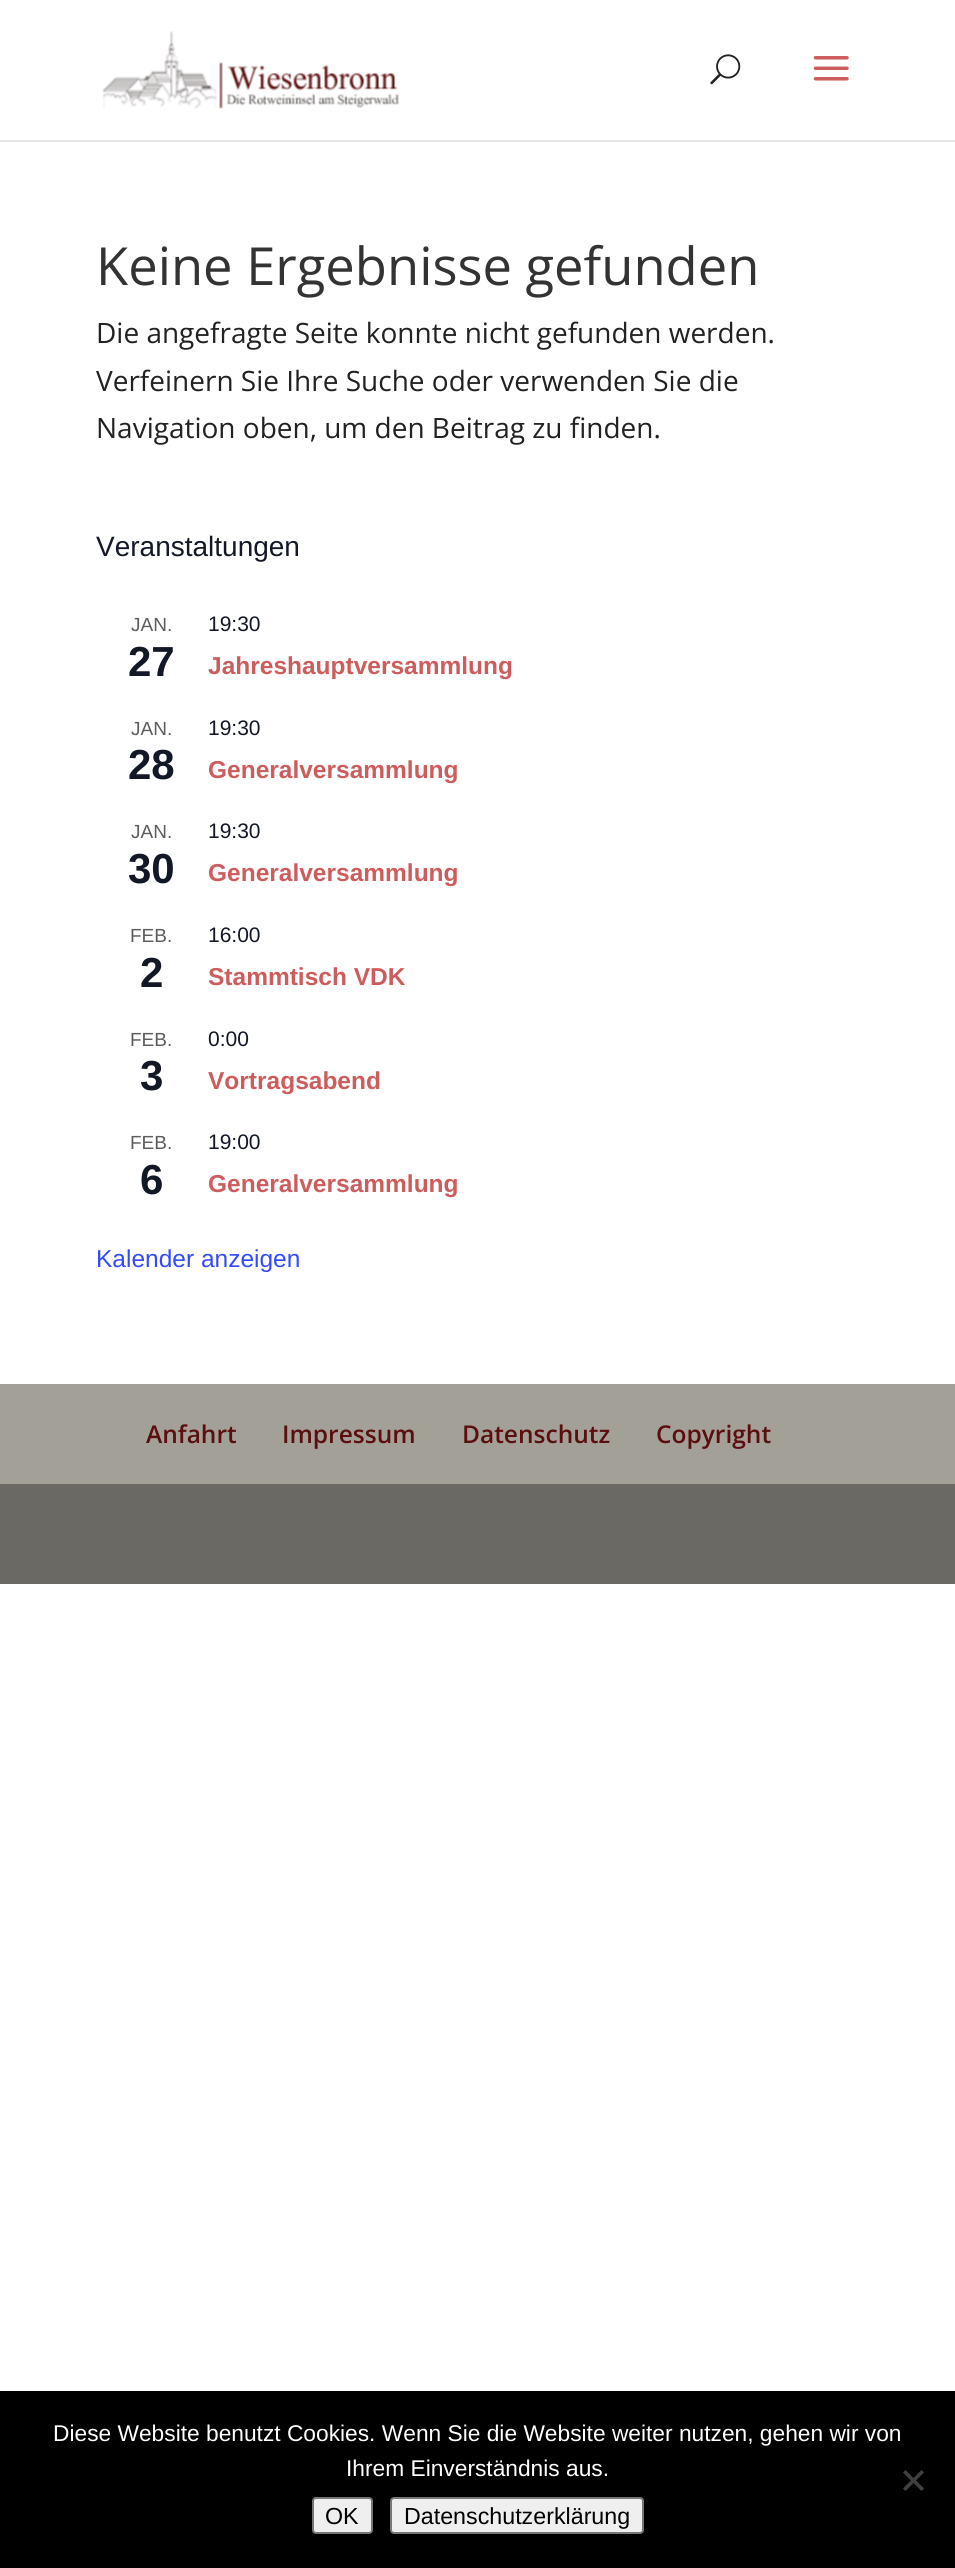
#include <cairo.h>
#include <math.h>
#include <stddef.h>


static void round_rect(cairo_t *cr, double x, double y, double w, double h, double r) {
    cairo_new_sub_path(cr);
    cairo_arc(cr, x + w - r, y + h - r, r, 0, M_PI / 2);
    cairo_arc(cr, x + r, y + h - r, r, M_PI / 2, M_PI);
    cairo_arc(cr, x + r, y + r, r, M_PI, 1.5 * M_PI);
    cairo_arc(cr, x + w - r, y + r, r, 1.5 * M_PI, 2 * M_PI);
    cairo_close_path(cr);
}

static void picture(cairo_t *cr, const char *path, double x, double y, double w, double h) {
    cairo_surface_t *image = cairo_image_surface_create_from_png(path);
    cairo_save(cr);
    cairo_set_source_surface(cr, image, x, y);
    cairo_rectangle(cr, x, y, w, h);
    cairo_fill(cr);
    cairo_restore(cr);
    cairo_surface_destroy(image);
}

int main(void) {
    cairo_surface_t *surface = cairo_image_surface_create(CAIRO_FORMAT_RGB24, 955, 2568);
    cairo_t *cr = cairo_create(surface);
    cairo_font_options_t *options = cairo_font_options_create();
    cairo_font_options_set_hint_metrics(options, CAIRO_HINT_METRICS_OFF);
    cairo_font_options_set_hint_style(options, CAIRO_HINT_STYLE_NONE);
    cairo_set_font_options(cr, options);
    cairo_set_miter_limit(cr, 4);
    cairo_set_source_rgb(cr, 1, 1, 1);
    cairo_paint(cr);
    cairo_set_source_rgb(cr, 0.902, 0.902, 0.902);
    cairo_new_path(cr);
    cairo_move_to(cr, 0, 140);
    cairo_line_to(cr, 0, 142);
    cairo_line_to(cr, 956, 142);
    cairo_line_to(cr, 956, 2);
    cairo_line_to(cr, 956, 140);
    cairo_close_path(cr);
    cairo_fill(cr);
    picture(cr, "img1.png", 102, 31, 298, 78);
    picture(cr, "img2.png", 710, 54, 31, 31);
    picture(cr, "img3.png", 813, 56, 36, 25);
    cairo_select_font_face(cr, "Open Sans", CAIRO_FONT_SLANT_NORMAL, CAIRO_FONT_WEIGHT_NORMAL);
    cairo_set_font_size(cr, 52.5);
    cairo_set_source_rgb(cr, 0.2, 0.2, 0.2);
    cairo_move_to(cr, 96, 285);
    cairo_show_text(cr, "Keine Ergebnisse gefunden");
    cairo_set_font_size(cr, 28);
    cairo_set_source_rgb(cr, 0.133, 0.133, 0.133);
    cairo_move_to(cr, 96, 343);
    cairo_show_text(cr, "Die angefragte Seite konnte nicht gefunden werden.");
    cairo_move_to(cr, 96, 391);
    cairo_show_text(cr, "Verfeinern Sie Ihre Suche oder verwenden Sie die");
    cairo_move_to(cr, 96, 438);
    cairo_show_text(cr, "Navigation oben, um den Beitrag zu finden.");
    cairo_select_font_face(cr, "Liberation Sans", CAIRO_FONT_SLANT_NORMAL, CAIRO_FONT_WEIGHT_NORMAL);
    cairo_set_source_rgb(cr, 0.078, 0.094, 0.153);
    cairo_move_to(cr, 96, 556);
    cairo_show_text(cr, "Veranstaltungen");
    cairo_set_font_size(cr, 19);
    cairo_set_source_rgb(cr, 0.365, 0.365, 0.365);
    cairo_move_to(cr, 131, 631);
    cairo_show_text(cr, "JAN.");
    cairo_select_font_face(cr, "Liberation Sans", CAIRO_FONT_SLANT_NORMAL, CAIRO_FONT_WEIGHT_BOLD);
    cairo_set_font_size(cr, 42);
    cairo_set_source_rgb(cr, 0.078, 0.094, 0.153);
    cairo_move_to(cr, 128, 676);
    cairo_show_text(cr, "27");
    cairo_select_font_face(cr, "Liberation Sans", CAIRO_FONT_SLANT_NORMAL, CAIRO_FONT_WEIGHT_NORMAL);
    cairo_set_font_size(cr, 21);
    cairo_move_to(cr, 208, 631);
    cairo_show_text(cr, "19:30");
    cairo_select_font_face(cr, "Liberation Sans", CAIRO_FONT_SLANT_NORMAL, CAIRO_FONT_WEIGHT_BOLD);
    cairo_set_font_size(cr, 24.5);
    cairo_set_source_rgb(cr, 0.804, 0.361, 0.361);
    cairo_move_to(cr, 208, 674);
    cairo_show_text(cr, "Jahreshauptversammlung");
    cairo_select_font_face(cr, "Liberation Sans", CAIRO_FONT_SLANT_NORMAL, CAIRO_FONT_WEIGHT_NORMAL);
    cairo_set_font_size(cr, 19);
    cairo_set_source_rgb(cr, 0.365, 0.365, 0.365);
    cairo_move_to(cr, 131, 735);
    cairo_show_text(cr, "JAN.");
    cairo_select_font_face(cr, "Liberation Sans", CAIRO_FONT_SLANT_NORMAL, CAIRO_FONT_WEIGHT_BOLD);
    cairo_set_font_size(cr, 42);
    cairo_set_source_rgb(cr, 0.078, 0.094, 0.153);
    cairo_move_to(cr, 128, 779);
    cairo_show_text(cr, "28");
    cairo_select_font_face(cr, "Liberation Sans", CAIRO_FONT_SLANT_NORMAL, CAIRO_FONT_WEIGHT_NORMAL);
    cairo_set_font_size(cr, 21);
    cairo_move_to(cr, 208, 735);
    cairo_show_text(cr, "19:30");
    cairo_select_font_face(cr, "Liberation Sans", CAIRO_FONT_SLANT_NORMAL, CAIRO_FONT_WEIGHT_BOLD);
    cairo_set_font_size(cr, 24.5);
    cairo_set_source_rgb(cr, 0.804, 0.361, 0.361);
    cairo_move_to(cr, 208, 778);
    cairo_show_text(cr, "Generalversammlung");
    cairo_select_font_face(cr, "Liberation Sans", CAIRO_FONT_SLANT_NORMAL, CAIRO_FONT_WEIGHT_NORMAL);
    cairo_set_font_size(cr, 19);
    cairo_set_source_rgb(cr, 0.365, 0.365, 0.365);
    cairo_move_to(cr, 131, 838);
    cairo_show_text(cr, "JAN.");
    cairo_select_font_face(cr, "Liberation Sans", CAIRO_FONT_SLANT_NORMAL, CAIRO_FONT_WEIGHT_BOLD);
    cairo_set_font_size(cr, 42);
    cairo_set_source_rgb(cr, 0.078, 0.094, 0.153);
    cairo_move_to(cr, 128, 883);
    cairo_show_text(cr, "30");
    cairo_select_font_face(cr, "Liberation Sans", CAIRO_FONT_SLANT_NORMAL, CAIRO_FONT_WEIGHT_NORMAL);
    cairo_set_font_size(cr, 21);
    cairo_move_to(cr, 208, 838);
    cairo_show_text(cr, "19:30");
    cairo_select_font_face(cr, "Liberation Sans", CAIRO_FONT_SLANT_NORMAL, CAIRO_FONT_WEIGHT_BOLD);
    cairo_set_font_size(cr, 24.5);
    cairo_set_source_rgb(cr, 0.804, 0.361, 0.361);
    cairo_move_to(cr, 208, 881);
    cairo_show_text(cr, "Generalversammlung");
    cairo_select_font_face(cr, "Liberation Sans", CAIRO_FONT_SLANT_NORMAL, CAIRO_FONT_WEIGHT_NORMAL);
    cairo_set_font_size(cr, 19);
    cairo_set_source_rgb(cr, 0.365, 0.365, 0.365);
    cairo_move_to(cr, 130, 942);
    cairo_show_text(cr, "FEB.");
    cairo_select_font_face(cr, "Liberation Sans", CAIRO_FONT_SLANT_NORMAL, CAIRO_FONT_WEIGHT_BOLD);
    cairo_set_font_size(cr, 42);
    cairo_set_source_rgb(cr, 0.078, 0.094, 0.153);
    cairo_move_to(cr, 140, 987);
    cairo_show_text(cr, "2");
    cairo_select_font_face(cr, "Liberation Sans", CAIRO_FONT_SLANT_NORMAL, CAIRO_FONT_WEIGHT_NORMAL);
    cairo_set_font_size(cr, 21);
    cairo_move_to(cr, 208, 942);
    cairo_show_text(cr, "16:00");
    cairo_select_font_face(cr, "Liberation Sans", CAIRO_FONT_SLANT_NORMAL, CAIRO_FONT_WEIGHT_BOLD);
    cairo_set_font_size(cr, 24.5);
    cairo_set_source_rgb(cr, 0.804, 0.361, 0.361);
    cairo_move_to(cr, 208, 985);
    cairo_show_text(cr, "Stammtisch VDK");
    cairo_select_font_face(cr, "Liberation Sans", CAIRO_FONT_SLANT_NORMAL, CAIRO_FONT_WEIGHT_NORMAL);
    cairo_set_font_size(cr, 19);
    cairo_set_source_rgb(cr, 0.365, 0.365, 0.365);
    cairo_move_to(cr, 130, 1046);
    cairo_show_text(cr, "FEB.");
    cairo_select_font_face(cr, "Liberation Sans", CAIRO_FONT_SLANT_NORMAL, CAIRO_FONT_WEIGHT_BOLD);
    cairo_set_font_size(cr, 42);
    cairo_set_source_rgb(cr, 0.078, 0.094, 0.153);
    cairo_move_to(cr, 140, 1090);
    cairo_show_text(cr, "3");
    cairo_select_font_face(cr, "Liberation Sans", CAIRO_FONT_SLANT_NORMAL, CAIRO_FONT_WEIGHT_NORMAL);
    cairo_set_font_size(cr, 21);
    cairo_move_to(cr, 208, 1046);
    cairo_show_text(cr, "0:00");
    cairo_select_font_face(cr, "Liberation Sans", CAIRO_FONT_SLANT_NORMAL, CAIRO_FONT_WEIGHT_BOLD);
    cairo_set_font_size(cr, 24.5);
    cairo_set_source_rgb(cr, 0.804, 0.361, 0.361);
    cairo_move_to(cr, 208, 1089);
    cairo_show_text(cr, "Vortragsabend");
    cairo_select_font_face(cr, "Liberation Sans", CAIRO_FONT_SLANT_NORMAL, CAIRO_FONT_WEIGHT_NORMAL);
    cairo_set_font_size(cr, 19);
    cairo_set_source_rgb(cr, 0.365, 0.365, 0.365);
    cairo_move_to(cr, 130, 1149);
    cairo_show_text(cr, "FEB.");
    cairo_select_font_face(cr, "Liberation Sans", CAIRO_FONT_SLANT_NORMAL, CAIRO_FONT_WEIGHT_BOLD);
    cairo_set_font_size(cr, 42);
    cairo_set_source_rgb(cr, 0.078, 0.094, 0.153);
    cairo_move_to(cr, 140, 1194);
    cairo_show_text(cr, "6");
    cairo_select_font_face(cr, "Liberation Sans", CAIRO_FONT_SLANT_NORMAL, CAIRO_FONT_WEIGHT_NORMAL);
    cairo_set_font_size(cr, 21);
    cairo_move_to(cr, 208, 1149);
    cairo_show_text(cr, "19:00");
    cairo_select_font_face(cr, "Liberation Sans", CAIRO_FONT_SLANT_NORMAL, CAIRO_FONT_WEIGHT_BOLD);
    cairo_set_font_size(cr, 24.5);
    cairo_set_source_rgb(cr, 0.804, 0.361, 0.361);
    cairo_move_to(cr, 208, 1192);
    cairo_show_text(cr, "Generalversammlung");
    cairo_select_font_face(cr, "Liberation Sans", CAIRO_FONT_SLANT_NORMAL, CAIRO_FONT_WEIGHT_NORMAL);
    cairo_set_source_rgb(cr, 0.2, 0.29, 1);
    cairo_move_to(cr, 96, 1267);
    cairo_show_text(cr, "Kalender anzeigen");
    cairo_set_source_rgb(cr, 0.639, 0.627, 0.592);
    cairo_rectangle(cr, 0, 1384, 955, 100);
    cairo_fill(cr);
    cairo_select_font_face(cr, "Open Sans SemiBold", CAIRO_FONT_SLANT_NORMAL, CAIRO_FONT_WEIGHT_NORMAL);
    cairo_set_source_rgb(cr, 0.361, 0.055, 0.055);
    cairo_move_to(cr, 146, 1443);
    cairo_show_text(cr, "Anfahrt");
    cairo_move_to(cr, 282, 1443);
    cairo_show_text(cr, "Impressum");
    cairo_move_to(cr, 462, 1443);
    cairo_show_text(cr, "Datenschutz");
    cairo_move_to(cr, 656, 1443);
    cairo_show_text(cr, "Copyright");
    cairo_set_source_rgb(cr, 0.42, 0.412, 0.388);
    cairo_rectangle(cr, 0, 1484, 955, 100);
    cairo_fill(cr);
    cairo_set_source_rgb(cr, 0, 0, 0);
    cairo_rectangle(cr, 0, 2391, 955, 177);
    cairo_fill(cr);
    cairo_select_font_face(cr, "Liberation Sans", CAIRO_FONT_SLANT_NORMAL, CAIRO_FONT_WEIGHT_NORMAL);
    cairo_set_font_size(cr, 22.75);
    cairo_set_source_rgb(cr, 1, 1, 1);
    cairo_move_to(cr, 53, 2441);
    cairo_show_text(cr, "Diese Website benutzt Cookies. Wenn Sie die Website weiter nutzen, gehen wir von");
    cairo_move_to(cr, 346, 2476);
    cairo_show_text(cr, "Ihrem Einverständnis aus.");
    cairo_set_source_rgb(cr, 0.251, 0.251, 0.251);
    cairo_new_path(cr);
    cairo_move_to(cr, 921.5, 2470);
    cairo_line_to(cr, 924, 2472.5);
    cairo_line_to(cr, 905.5, 2491);
    cairo_line_to(cr, 903, 2488.5);
    cairo_close_path(cr);
    cairo_fill(cr);
    cairo_new_path(cr);
    cairo_move_to(cr, 903, 2472.5);
    cairo_line_to(cr, 905.5, 2470);
    cairo_line_to(cr, 924, 2488.5);
    cairo_line_to(cr, 921.5, 2491);
    cairo_close_path(cr);
    cairo_fill(cr);
    cairo_set_source_rgb(cr, 0.937, 0.937, 0.937);
    round_rect(cr, 313, 2498, 59, 35, 3);
    cairo_fill_preserve(cr);
    cairo_set_source_rgb(cr, 0.463, 0.463, 0.463);
    cairo_stroke(cr);
    cairo_set_font_size(cr, 23.25);
    cairo_set_source_rgb(cr, 0, 0, 0);
    cairo_move_to(cr, 325, 2524);
    cairo_show_text(cr, "OK");
    cairo_set_source_rgb(cr, 0.937, 0.937, 0.937);
    round_rect(cr, 391, 2498, 252, 35, 3);
    cairo_fill_preserve(cr);
    cairo_set_source_rgb(cr, 0.463, 0.463, 0.463);
    cairo_stroke(cr);
    cairo_set_source_rgb(cr, 0, 0, 0);
    cairo_move_to(cr, 404, 2524);
    cairo_show_text(cr, "Datenschutzerklärung");
    cairo_surface_write_to_png(surface, "page.png");
    cairo_font_options_destroy(options);
    cairo_destroy(cr);
    cairo_surface_destroy(surface);
    return 0;
}
